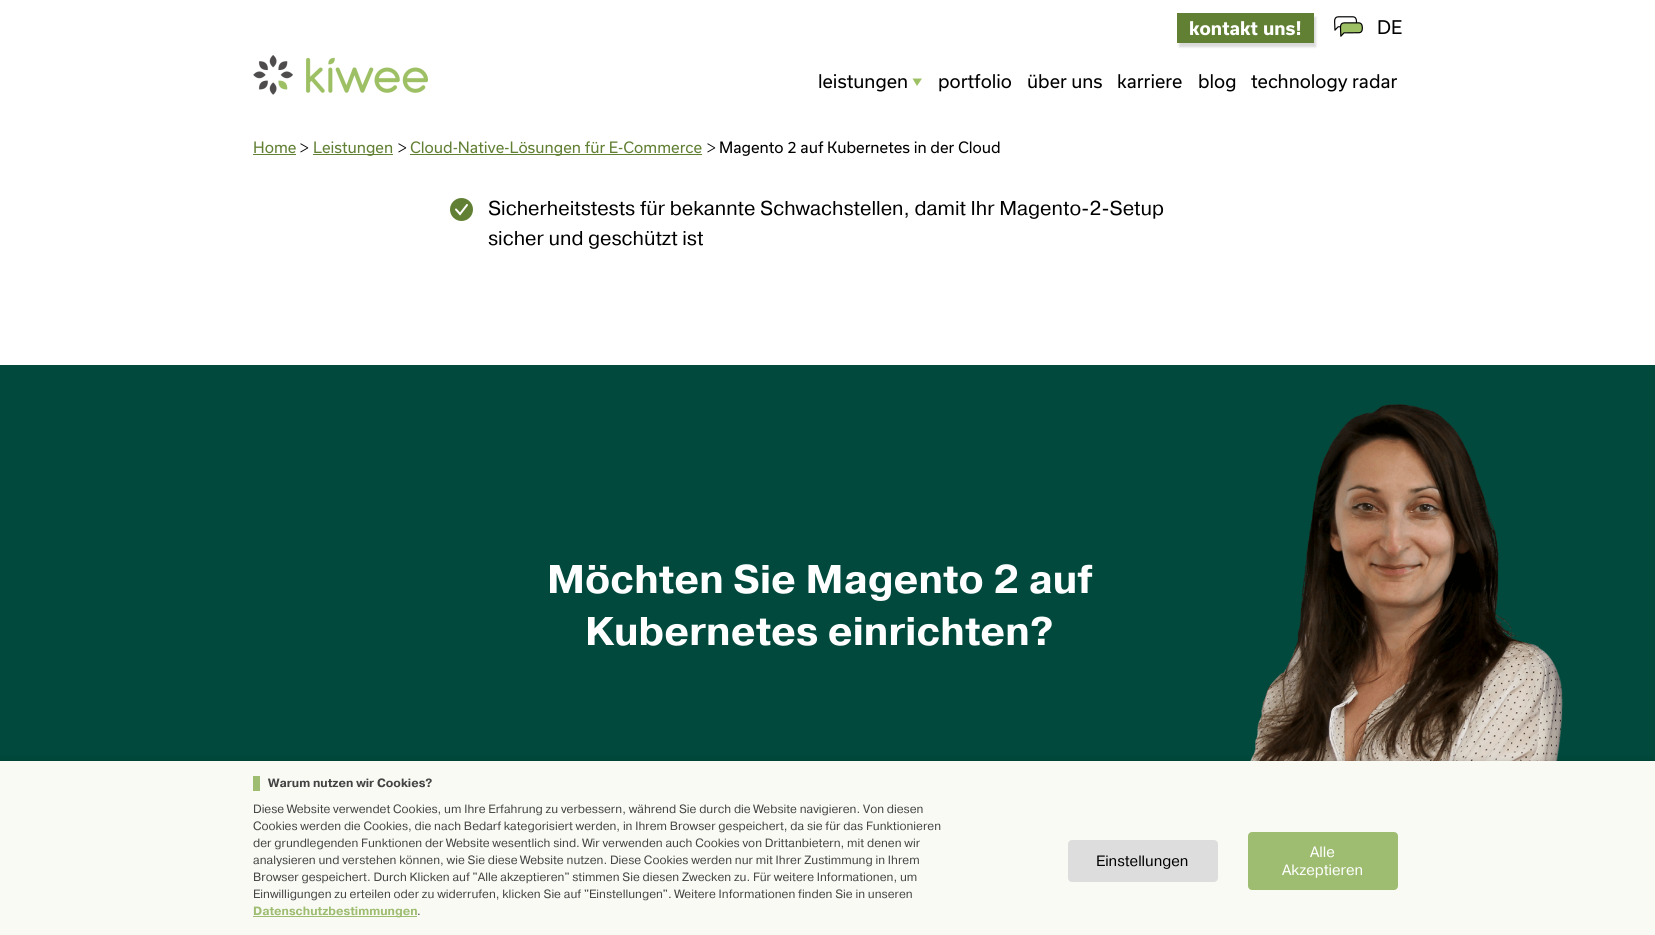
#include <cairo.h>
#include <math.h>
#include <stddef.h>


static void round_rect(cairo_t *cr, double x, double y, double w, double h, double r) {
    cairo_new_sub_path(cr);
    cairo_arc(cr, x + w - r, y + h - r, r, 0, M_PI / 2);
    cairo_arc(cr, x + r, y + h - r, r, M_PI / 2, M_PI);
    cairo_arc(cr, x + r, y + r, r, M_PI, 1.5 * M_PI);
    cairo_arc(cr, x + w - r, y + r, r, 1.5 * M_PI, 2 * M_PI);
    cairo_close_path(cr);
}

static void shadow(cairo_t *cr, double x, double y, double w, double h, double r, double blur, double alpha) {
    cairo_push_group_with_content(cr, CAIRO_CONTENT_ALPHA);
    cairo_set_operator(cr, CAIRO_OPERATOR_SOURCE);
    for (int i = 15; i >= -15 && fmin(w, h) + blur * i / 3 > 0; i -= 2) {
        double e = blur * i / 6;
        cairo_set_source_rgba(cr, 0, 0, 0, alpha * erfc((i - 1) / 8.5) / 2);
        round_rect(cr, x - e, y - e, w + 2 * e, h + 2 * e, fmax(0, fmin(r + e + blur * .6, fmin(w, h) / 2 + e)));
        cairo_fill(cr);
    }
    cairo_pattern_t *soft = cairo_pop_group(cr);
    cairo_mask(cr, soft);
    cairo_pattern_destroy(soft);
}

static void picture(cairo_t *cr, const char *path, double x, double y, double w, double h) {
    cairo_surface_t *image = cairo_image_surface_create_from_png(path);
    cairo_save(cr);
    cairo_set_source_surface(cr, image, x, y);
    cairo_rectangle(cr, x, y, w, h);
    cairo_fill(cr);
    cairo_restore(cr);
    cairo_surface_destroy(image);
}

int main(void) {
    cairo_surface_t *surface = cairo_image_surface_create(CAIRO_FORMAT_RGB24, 1655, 935);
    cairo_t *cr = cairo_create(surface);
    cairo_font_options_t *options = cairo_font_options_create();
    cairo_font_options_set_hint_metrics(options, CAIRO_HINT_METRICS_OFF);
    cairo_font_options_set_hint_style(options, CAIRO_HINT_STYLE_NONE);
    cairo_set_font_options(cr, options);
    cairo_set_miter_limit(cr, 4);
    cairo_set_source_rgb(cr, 1, 1, 1);
    cairo_paint(cr);
    cairo_set_source_rgb(cr, 0, 0, 0);
    shadow(cr, 1179, 17, 137, 30, 0, 1, 0.15);
    cairo_set_source_rgb(cr, 0.38, 0.502, 0.204);
    cairo_rectangle(cr, 1177, 13, 137, 30);
    cairo_fill(cr);
    cairo_select_font_face(cr, "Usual", CAIRO_FONT_SLANT_NORMAL, CAIRO_FONT_WEIGHT_BOLD);
    cairo_set_font_size(cr, 18);
    cairo_set_source_rgb(cr, 1, 1, 1);
    cairo_move_to(cr, 1189, 35);
    cairo_show_text(cr, "kontakt uns!");
    picture(cr, "img1.png", 1334, 16, 29, 21);
    cairo_select_font_face(cr, "Usual", CAIRO_FONT_SLANT_NORMAL, CAIRO_FONT_WEIGHT_NORMAL);
    cairo_set_source_rgb(cr, 0, 0, 0);
    cairo_move_to(cr, 1377, 34);
    cairo_show_text(cr, "DE");
    picture(cr, "img2.png", 253, 55, 175, 40);
    cairo_move_to(cr, 818, 88);
    cairo_show_text(cr, "leistungen");
    cairo_set_source_rgb(cr, 0.62, 0.753, 0.396);
    cairo_new_path(cr);
    cairo_move_to(cr, 922, 78.5);
    cairo_line_to(cr, 917, 86);
    cairo_line_to(cr, 912.5, 78.5);
    cairo_close_path(cr);
    cairo_fill(cr);
    cairo_set_source_rgb(cr, 0, 0, 0);
    cairo_move_to(cr, 938, 88);
    cairo_show_text(cr, "portfolio");
    cairo_move_to(cr, 1027, 88);
    cairo_show_text(cr, "über uns");
    cairo_move_to(cr, 1117, 88);
    cairo_show_text(cr, "karriere");
    cairo_move_to(cr, 1198, 88);
    cairo_show_text(cr, "blog");
    cairo_move_to(cr, 1251, 88);
    cairo_show_text(cr, "technology radar");
    cairo_set_font_size(cr, 15);
    cairo_set_source_rgb(cr, 0.38, 0.502, 0.204);
    cairo_move_to(cr, 253, 153);
    cairo_show_text(cr, "Home");
    cairo_rectangle(cr, 253, 154, 43, 1);
    cairo_fill(cr);
    cairo_select_font_face(cr, "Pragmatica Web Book", CAIRO_FONT_SLANT_NORMAL, CAIRO_FONT_WEIGHT_NORMAL);
    cairo_set_source_rgb(cr, 0, 0, 0);
    cairo_move_to(cr, 299, 153);
    cairo_show_text(cr, ">");
    cairo_set_source_rgb(cr, 0.38, 0.502, 0.204);
    cairo_rectangle(cr, 313, 154, 80, 1);
    cairo_fill(cr);
    cairo_select_font_face(cr, "Usual", CAIRO_FONT_SLANT_NORMAL, CAIRO_FONT_WEIGHT_NORMAL);
    cairo_move_to(cr, 313, 153);
    cairo_show_text(cr, "Leistungen");
    cairo_select_font_face(cr, "Pragmatica Web Book", CAIRO_FONT_SLANT_NORMAL, CAIRO_FONT_WEIGHT_NORMAL);
    cairo_set_source_rgb(cr, 0, 0, 0);
    cairo_move_to(cr, 397, 153);
    cairo_show_text(cr, ">");
    cairo_set_source_rgb(cr, 0.38, 0.502, 0.204);
    cairo_rectangle(cr, 410, 154, 292, 1);
    cairo_fill(cr);
    cairo_select_font_face(cr, "Usual", CAIRO_FONT_SLANT_NORMAL, CAIRO_FONT_WEIGHT_NORMAL);
    cairo_move_to(cr, 410, 153);
    cairo_show_text(cr, "Cloud-Native-Lösungen für E-Commerce");
    cairo_select_font_face(cr, "Pragmatica Web Book", CAIRO_FONT_SLANT_NORMAL, CAIRO_FONT_WEIGHT_NORMAL);
    cairo_set_source_rgb(cr, 0, 0, 0);
    cairo_move_to(cr, 706, 153);
    cairo_show_text(cr, ">");
    cairo_select_font_face(cr, "Usual", CAIRO_FONT_SLANT_NORMAL, CAIRO_FONT_WEIGHT_NORMAL);
    cairo_move_to(cr, 719, 153);
    cairo_show_text(cr, "Magento 2 auf Kubernetes in der Cloud");
    cairo_set_source_rgb(cr, 0.38, 0.502, 0.204);
    cairo_new_path(cr);
    cairo_arc(cr, 461.5, 209.5, 11.5, 0, 2 * M_PI);
    cairo_fill(cr);
    cairo_new_path(cr);
    cairo_move_to(cr, 456, 209.5);
    cairo_line_to(cr, 460, 214);
    cairo_line_to(cr, 467, 205);
    cairo_set_source_rgb(cr, 1, 1, 1);
    cairo_set_line_cap(cr, CAIRO_LINE_CAP_ROUND);
    cairo_stroke(cr);
    cairo_select_font_face(cr, "Pragmatica Web Book", CAIRO_FONT_SLANT_NORMAL, CAIRO_FONT_WEIGHT_NORMAL);
    cairo_set_font_size(cr, 20);
    cairo_set_source_rgb(cr, 0, 0, 0);
    cairo_move_to(cr, 488, 215);
    cairo_show_text(cr, "Sicherheitstests für bekannte Schwachstellen, damit Ihr Magento-2-Setup");
    cairo_move_to(cr, 488, 245);
    cairo_show_text(cr, "sicher und geschützt ist");
    cairo_set_source_rgb(cr, 0, 0.286, 0.235);
    cairo_rectangle(cr, 0, 365, 1655, 396);
    cairo_fill(cr);
    cairo_select_font_face(cr, "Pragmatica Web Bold", CAIRO_FONT_SLANT_NORMAL, CAIRO_FONT_WEIGHT_BOLD);
    cairo_set_font_size(cr, 40);
    cairo_set_source_rgb(cr, 1, 1, 1);
    cairo_move_to(cr, 547, 593);
    cairo_show_text(cr, "Möchten Sie Magento 2 auf");
    cairo_move_to(cr, 585, 645);
    cairo_show_text(cr, "Kubernetes einrichten?");
    picture(cr, "img3.png", 1250, 404, 313, 357);
    cairo_set_source_rgb(cr, 0, 0, 0);
    shadow(cr, 0, 766, 1655, 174, 0, 5, 0.5);
    cairo_set_source_rgb(cr, 0.973, 0.98, 0.957);
    cairo_rectangle(cr, 0, 761, 1655, 174);
    cairo_fill(cr);
    cairo_set_source_rgb(cr, 0.62, 0.741, 0.443);
    cairo_rectangle(cr, 253, 776, 7, 15);
    cairo_fill(cr);
    cairo_set_font_size(cr, 12);
    cairo_set_source_rgb(cr, 0.267, 0.267, 0.267);
    cairo_move_to(cr, 268, 787);
    cairo_show_text(cr, "Warum nutzen wir Cookies?");
    cairo_select_font_face(cr, "Pragmatica Web Book", CAIRO_FONT_SLANT_NORMAL, CAIRO_FONT_WEIGHT_NORMAL);
    cairo_move_to(cr, 253, 813);
    cairo_show_text(cr, "Diese Website verwendet Cookies, um Ihre Erfahrung zu verbessern, während Sie durch die Website navigieren. Von diesen");
    cairo_move_to(cr, 253, 830);
    cairo_show_text(cr, "Cookies werden die Cookies, die nach Bedarf kategorisiert werden, in Ihrem Browser gespeichert, da sie für das Funktionieren");
    cairo_move_to(cr, 253, 847);
    cairo_show_text(cr, "der grundlegenden Funktionen der Website wesentlich sind. Wir verwenden auch Cookies von Drittanbietern, mit denen wir");
    cairo_move_to(cr, 253, 864);
    cairo_show_text(cr, "analysieren und verstehen können, wie Sie diese Website nutzen. Diese Cookies werden nur mit Ihrer Zustimmung in Ihrem");
    cairo_move_to(cr, 253, 881);
    cairo_show_text(cr, "Browser gespeichert. Durch Klicken auf \"Alle akzeptieren\" stimmen Sie diesen Zwecken zu. Für weitere Informationen, um");
    cairo_move_to(cr, 253, 898);
    cairo_show_text(cr, "Einwilligungen zu erteilen oder zu widerrufen, klicken Sie auf \"Einstellungen\". Weitere Informationen finden Sie in unseren");
    cairo_set_source_rgb(cr, 0.62, 0.741, 0.443);
    cairo_rectangle(cr, 253, 916, 164, 1);
    cairo_fill(cr);
    cairo_select_font_face(cr, "Pragmatica Web Bold", CAIRO_FONT_SLANT_NORMAL, CAIRO_FONT_WEIGHT_BOLD);
    cairo_move_to(cr, 253, 915);
    cairo_show_text(cr, "Datenschutzbestimmungen");
    cairo_select_font_face(cr, "Pragmatica Web Book", CAIRO_FONT_SLANT_NORMAL, CAIRO_FONT_WEIGHT_NORMAL);
    cairo_set_source_rgb(cr, 0.267, 0.267, 0.267);
    cairo_move_to(cr, 417, 915);
    cairo_show_text(cr, ".");
    cairo_set_source_rgb(cr, 0.867, 0.867, 0.867);
    round_rect(cr, 1069.5, 841.5, 147, 39, 2.5);
    cairo_fill_preserve(cr);
    cairo_set_line_width(cr, 3);
    cairo_set_line_cap(cr, CAIRO_LINE_CAP_BUTT);
    cairo_stroke(cr);
    cairo_set_font_size(cr, 15);
    cairo_set_source_rgb(cr, 0, 0, 0);
    cairo_move_to(cr, 1096, 866);
    cairo_show_text(cr, "Einstellungen");
    cairo_set_source_rgb(cr, 0.62, 0.741, 0.443);
    round_rect(cr, 1249.5, 833.5, 147, 55, 2.5);
    cairo_fill_preserve(cr);
    cairo_stroke(cr);
    cairo_set_source_rgb(cr, 1, 1, 1);
    cairo_move_to(cr, 1310, 857);
    cairo_show_text(cr, "Alle");
    cairo_move_to(cr, 1282, 875);
    cairo_show_text(cr, "Akzeptieren");
    cairo_surface_write_to_png(surface, "page.png");
    cairo_font_options_destroy(options);
    cairo_destroy(cr);
    cairo_surface_destroy(surface);
    return 0;
}
